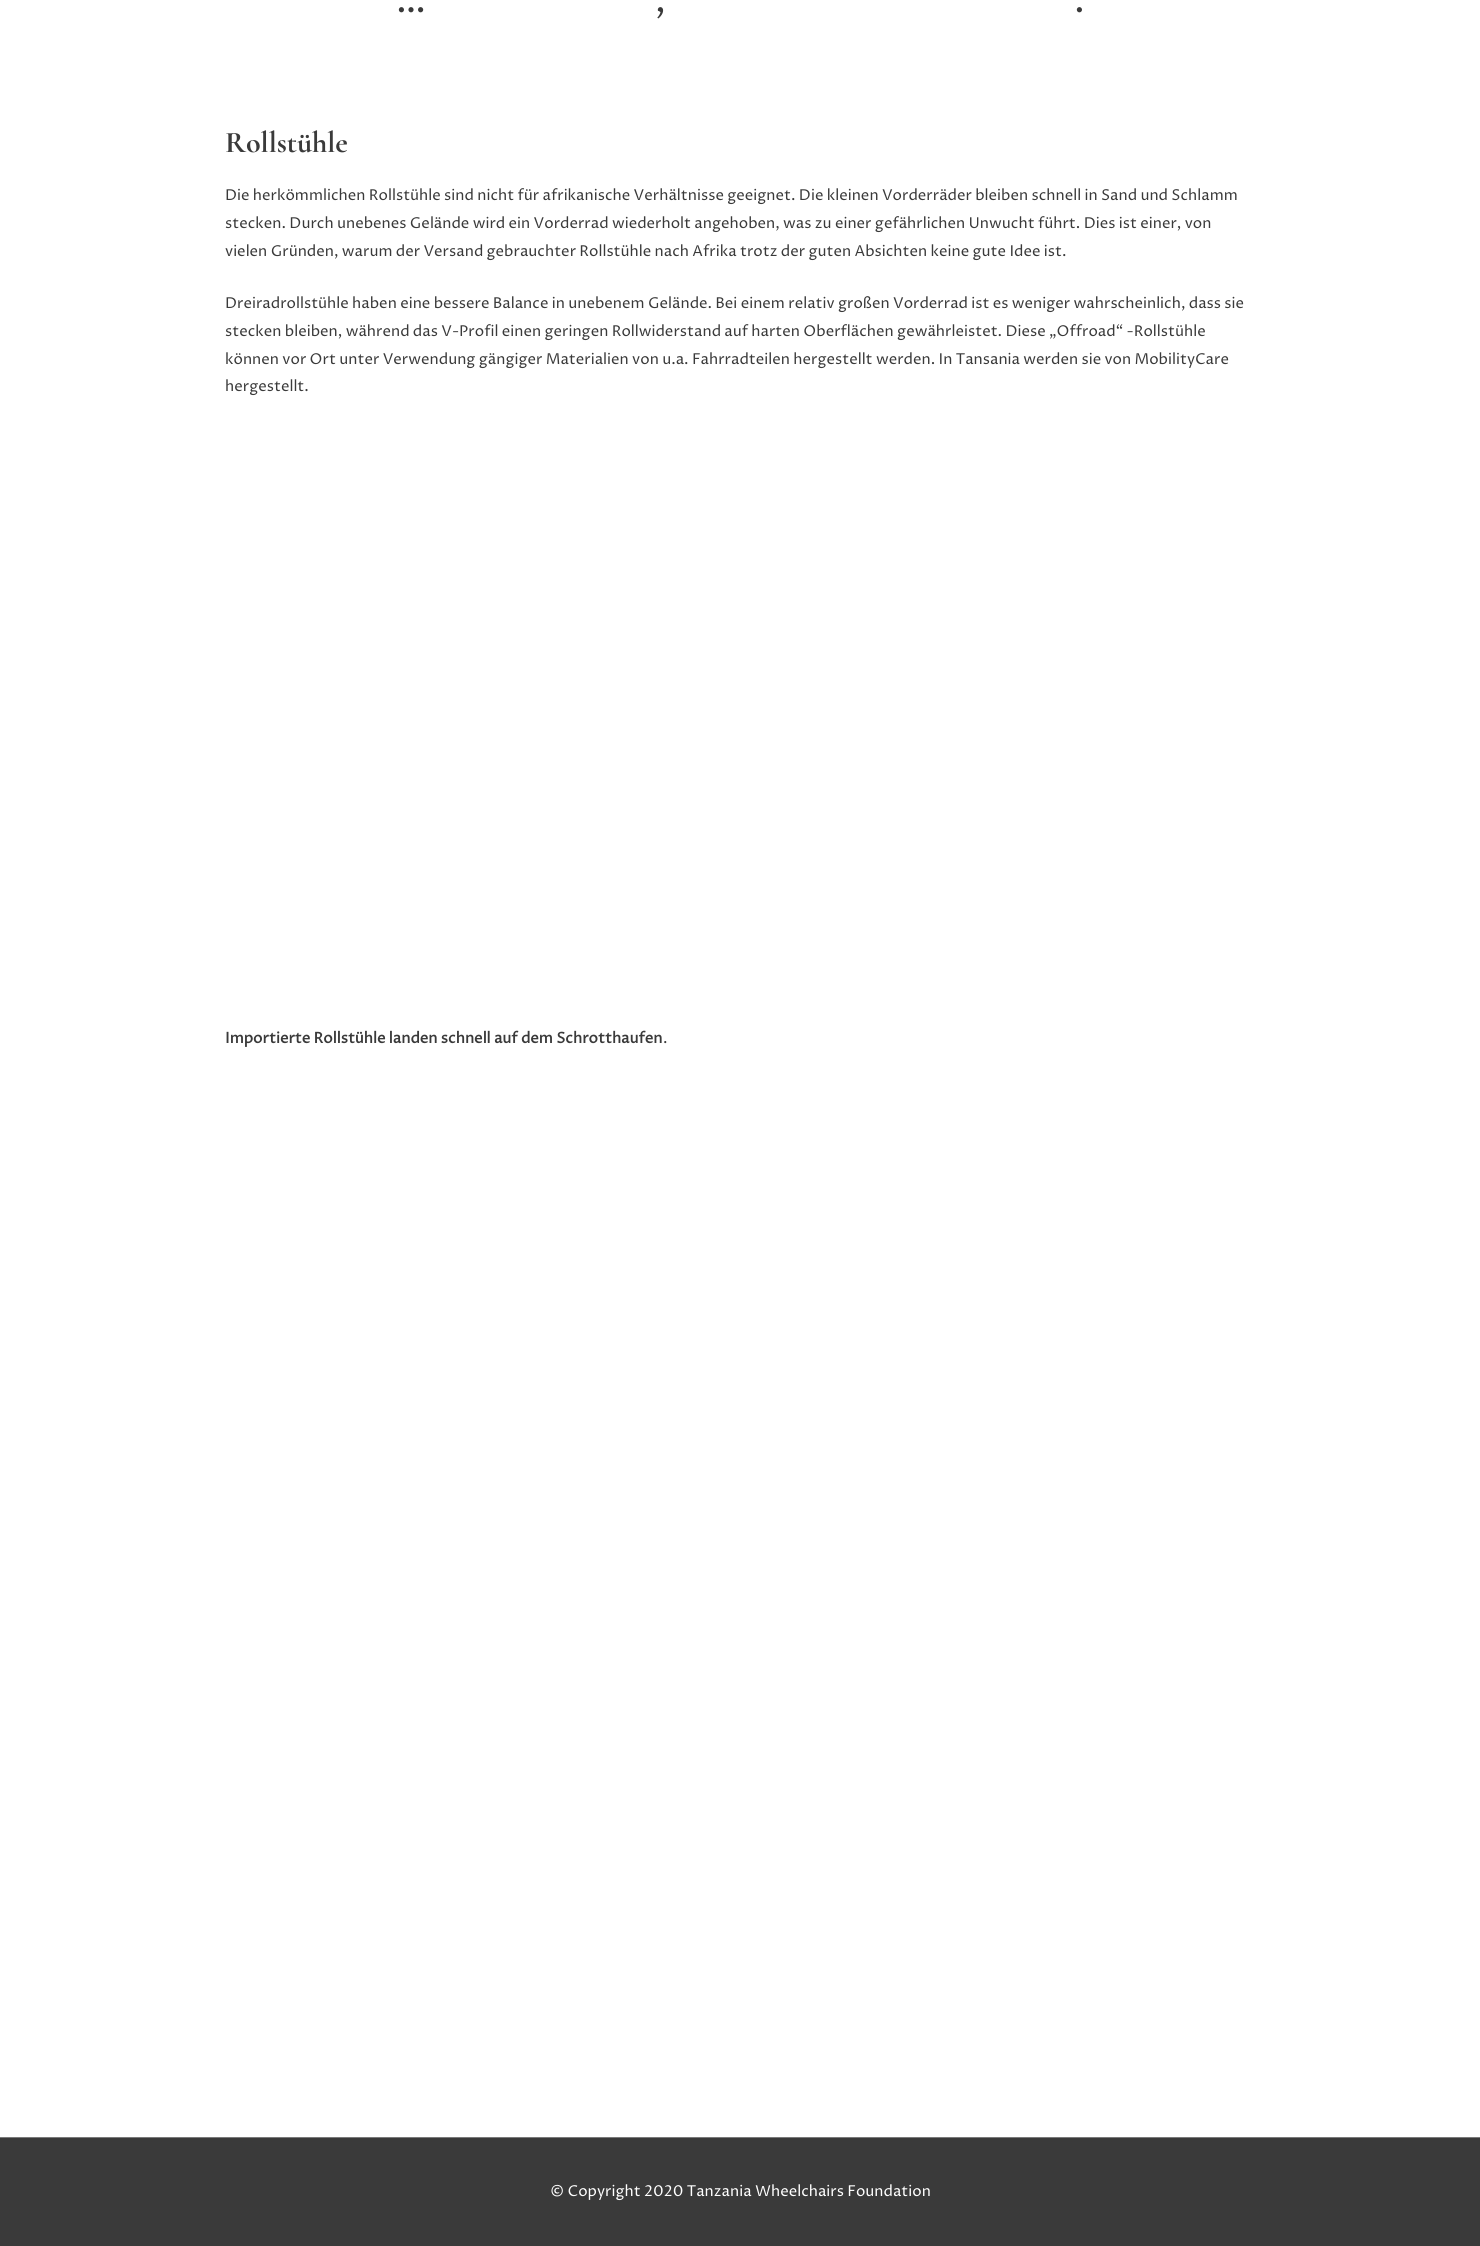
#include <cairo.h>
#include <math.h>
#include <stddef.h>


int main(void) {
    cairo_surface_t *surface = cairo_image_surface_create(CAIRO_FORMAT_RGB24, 1480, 2246);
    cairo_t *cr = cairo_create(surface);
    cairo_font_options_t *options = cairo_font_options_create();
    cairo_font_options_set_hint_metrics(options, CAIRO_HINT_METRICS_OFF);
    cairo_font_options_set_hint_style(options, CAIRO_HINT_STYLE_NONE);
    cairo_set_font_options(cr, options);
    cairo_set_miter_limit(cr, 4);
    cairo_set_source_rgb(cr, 1, 1, 1);
    cairo_paint(cr);
    cairo_select_font_face(cr, "Proza Libre", CAIRO_FONT_SLANT_NORMAL, CAIRO_FONT_WEIGHT_NORMAL);
    cairo_set_font_size(cr, 36);
    cairo_set_source_rgb(cr, 0.227, 0.227, 0.227);
    cairo_move_to(cr, 396, 12);
    cairo_show_text(cr, "…");
    cairo_move_to(cr, 655, 12);
    cairo_show_text(cr, ",");
    cairo_move_to(cr, 1074, 12);
    cairo_show_text(cr, ".");
    cairo_select_font_face(cr, "Cormorant Garamond Light", CAIRO_FONT_SLANT_NORMAL, CAIRO_FONT_WEIGHT_NORMAL);
    cairo_set_font_size(cr, 30);
    cairo_move_to(cr, 225, 152);
    cairo_show_text(cr, "Rollstühle");
    cairo_select_font_face(cr, "Proza Libre", CAIRO_FONT_SLANT_NORMAL, CAIRO_FONT_WEIGHT_NORMAL);
    cairo_set_font_size(cr, 15);
    cairo_move_to(cr, 225, 200);
    cairo_show_text(cr, "Die herkömmlichen Rollstühle sind nicht für afrikanische Verhältnisse geeignet. Die kleinen Vorderräder bleiben schnell in Sand und Schlamm");
    cairo_move_to(cr, 225, 228);
    cairo_show_text(cr, "stecken. Durch unebenes Gelände wird ein Vorderrad wiederholt angehoben, was zu einer gefährlichen Unwucht führt. Dies ist einer, von");
    cairo_move_to(cr, 225, 256);
    cairo_show_text(cr, "vielen Gründen, warum der Versand gebrauchter Rollstühle nach Afrika trotz der guten Absichten keine gute Idee ist.");
    cairo_move_to(cr, 225, 308);
    cairo_show_text(cr, "Dreiradrollstühle haben eine bessere Balance in unebenem Gelände. Bei einem relativ großen Vorderrad ist es weniger wahrscheinlich, dass sie");
    cairo_move_to(cr, 225, 336);
    cairo_show_text(cr, "stecken bleiben, während das V-Profil einen geringen Rollwiderstand auf harten Oberflächen gewährleistet. Diese „Offroad“ -Rollstühle");
    cairo_move_to(cr, 225, 364);
    cairo_show_text(cr, "können vor Ort unter Verwendung gängiger Materialien von u.a. Fahrradteilen hergestellt werden. In Tansania werden sie von MobilityCare");
    cairo_move_to(cr, 225, 391);
    cairo_show_text(cr, "hergestellt.");
    cairo_select_font_face(cr, "Proza Libre", CAIRO_FONT_SLANT_NORMAL, CAIRO_FONT_WEIGHT_BOLD);
    cairo_move_to(cr, 225, 1043);
    cairo_show_text(cr, "Importierte Rollstühle landen schnell auf dem Schrotthaufen");
    cairo_select_font_face(cr, "Proza Libre", CAIRO_FONT_SLANT_NORMAL, CAIRO_FONT_WEIGHT_NORMAL);
    cairo_move_to(cr, 663, 1043);
    cairo_show_text(cr, ".");
    cairo_set_source_rgb(cr, 0.478, 0.478, 0.478);
    cairo_rectangle(cr, 0, 2137, 1480, 1);
    cairo_fill(cr);
    cairo_set_source_rgb(cr, 0.227, 0.227, 0.227);
    cairo_rectangle(cr, 0, 2138, 1480, 108);
    cairo_fill(cr);
    cairo_set_source_rgb(cr, 1, 1, 1);
    cairo_move_to(cr, 550, 2196);
    cairo_show_text(cr, "© Copyright 2020 Tanzania Wheelchairs Foundation");
    cairo_surface_write_to_png(surface, "page.png");
    cairo_font_options_destroy(options);
    cairo_destroy(cr);
    cairo_surface_destroy(surface);
    return 0;
}
